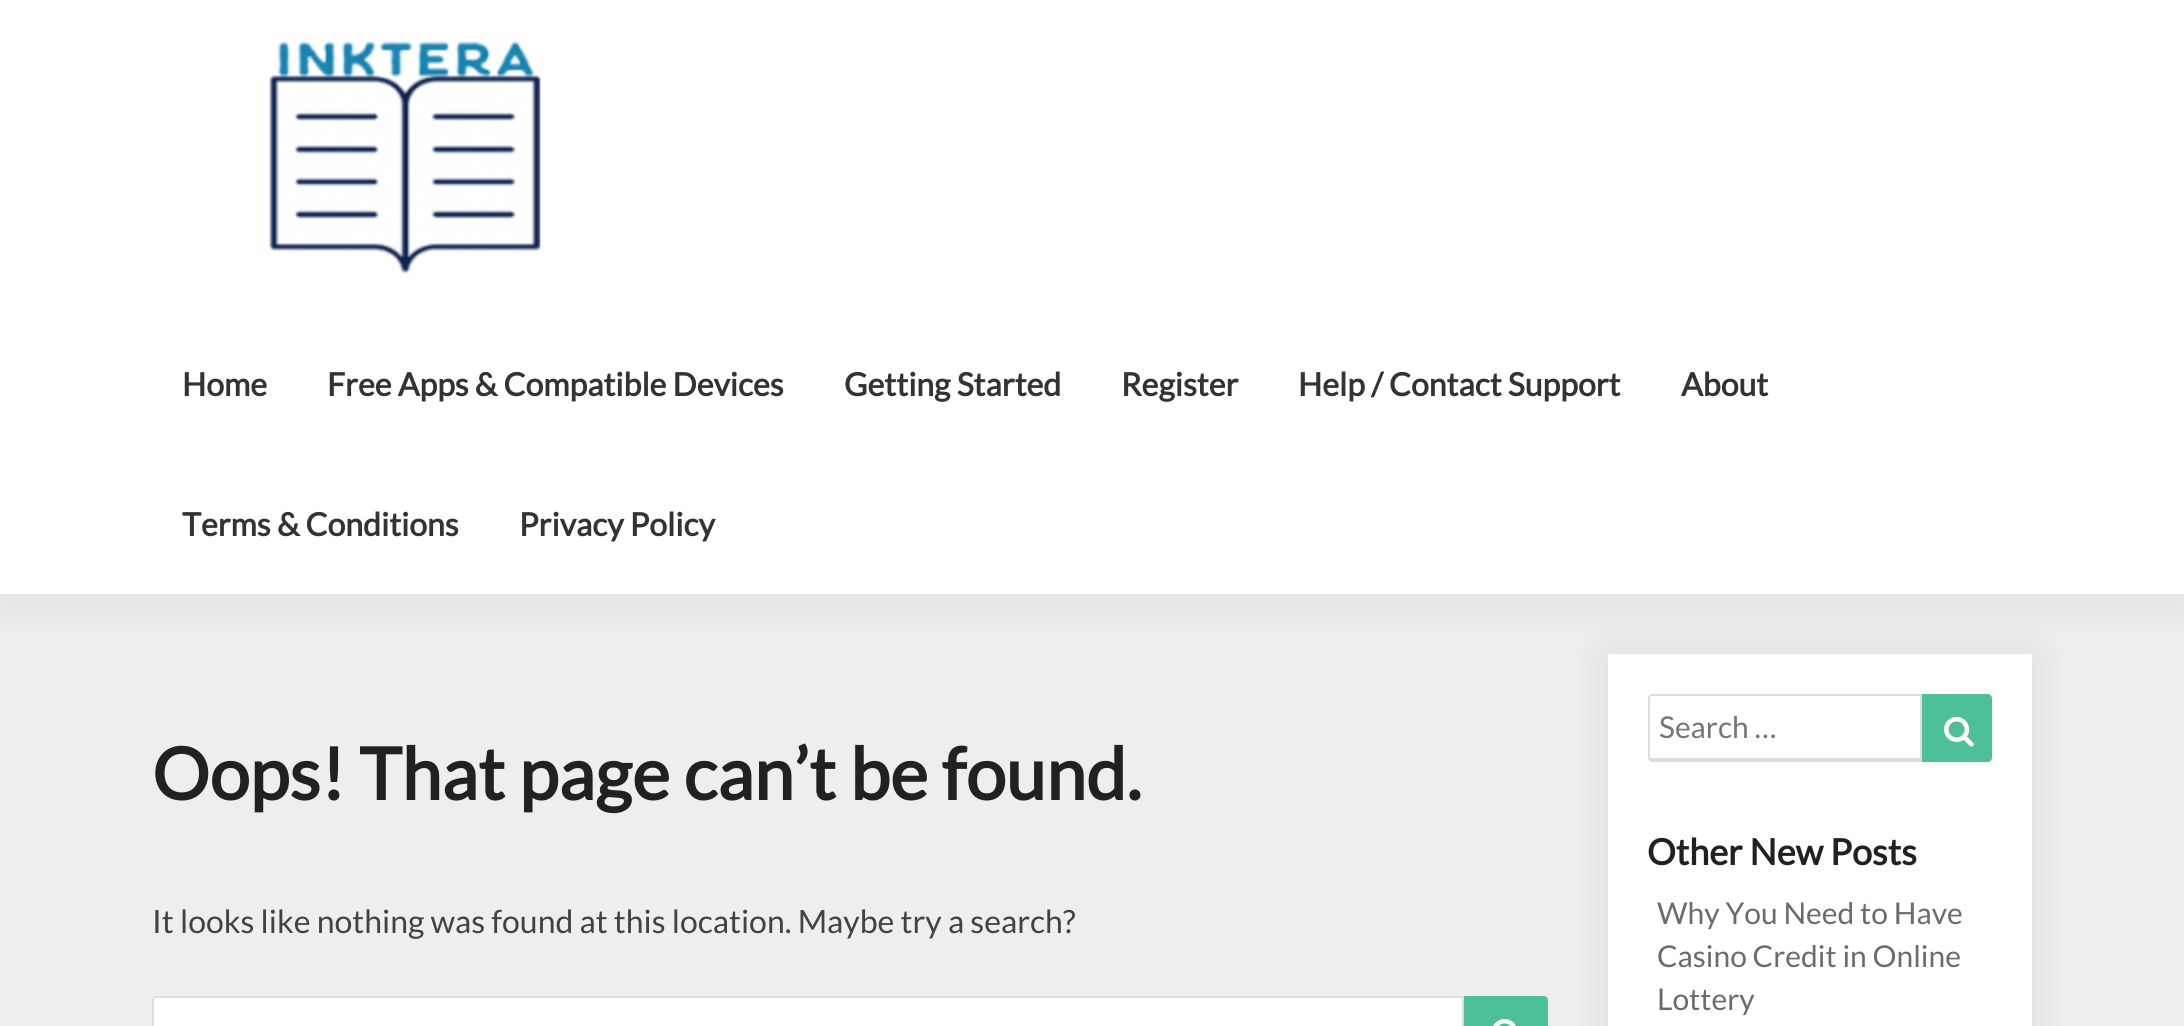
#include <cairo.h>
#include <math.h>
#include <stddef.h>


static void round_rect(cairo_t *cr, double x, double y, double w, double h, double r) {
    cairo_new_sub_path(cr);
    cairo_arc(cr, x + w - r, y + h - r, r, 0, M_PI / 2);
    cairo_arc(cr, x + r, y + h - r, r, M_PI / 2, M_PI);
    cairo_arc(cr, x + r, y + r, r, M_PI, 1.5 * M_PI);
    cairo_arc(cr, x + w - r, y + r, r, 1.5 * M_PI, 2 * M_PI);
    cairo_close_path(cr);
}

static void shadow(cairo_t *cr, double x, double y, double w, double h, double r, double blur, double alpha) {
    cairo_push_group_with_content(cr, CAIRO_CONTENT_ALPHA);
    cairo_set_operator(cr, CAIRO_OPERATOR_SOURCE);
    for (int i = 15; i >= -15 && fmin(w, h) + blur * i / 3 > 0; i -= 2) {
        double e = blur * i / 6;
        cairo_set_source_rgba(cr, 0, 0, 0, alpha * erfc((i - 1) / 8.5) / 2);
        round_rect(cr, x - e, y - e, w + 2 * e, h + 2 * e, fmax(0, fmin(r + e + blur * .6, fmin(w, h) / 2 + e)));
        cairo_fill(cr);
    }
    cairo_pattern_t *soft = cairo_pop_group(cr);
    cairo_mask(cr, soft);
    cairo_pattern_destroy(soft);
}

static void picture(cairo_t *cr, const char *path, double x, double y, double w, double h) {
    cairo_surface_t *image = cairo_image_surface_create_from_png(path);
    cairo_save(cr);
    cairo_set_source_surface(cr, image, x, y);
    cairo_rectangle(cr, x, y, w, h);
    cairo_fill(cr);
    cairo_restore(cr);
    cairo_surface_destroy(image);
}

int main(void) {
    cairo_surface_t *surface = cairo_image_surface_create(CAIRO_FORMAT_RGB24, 2184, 1026);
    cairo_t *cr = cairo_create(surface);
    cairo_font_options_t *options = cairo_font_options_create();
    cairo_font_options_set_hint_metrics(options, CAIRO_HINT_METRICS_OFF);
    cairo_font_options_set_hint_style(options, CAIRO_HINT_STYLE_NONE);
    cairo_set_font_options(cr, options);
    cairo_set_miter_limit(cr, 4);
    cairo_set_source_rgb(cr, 0.933, 0.933, 0.933);
    cairo_paint(cr);
    cairo_set_source_rgb(cr, 0.302, 0.749, 0.6);
    cairo_new_path(cr);
    cairo_move_to(cr, 1465, 997);
    cairo_line_to(cr, 1544, 997);
    cairo_curve_to(cr, 1545.5, 997, 1547, 998.5, 1547, 1000);
    cairo_line_to(cr, 1547, 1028);
    cairo_curve_to(cr, 1547, 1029.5, 1545.5, 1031, 1544, 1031);
    cairo_line_to(cr, 1465, 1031);
    cairo_close_path(cr);
    cairo_fill_preserve(cr);
    cairo_stroke(cr);
    cairo_set_source_rgb(cr, 0, 0, 0);
    shadow(cr, 1608, 658, 424, 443, 0, 25, 0.08);
    cairo_set_source_rgb(cr, 1, 1, 1);
    cairo_rectangle(cr, 1608, 654, 424, 372);
    cairo_fill(cr);
    cairo_set_source_rgb(cr, 0, 0, 0);
    shadow(cr, 0, 4, 2184, 594, 0, 25, 0.08);
    cairo_set_source_rgb(cr, 1, 1, 1);
    cairo_rectangle(cr, 0, 0, 2184, 594);
    cairo_fill(cr);
    picture(cr, "img1.png", 269, 40, 272, 234);
    cairo_select_font_face(cr, "Lato", CAIRO_FONT_SLANT_NORMAL, CAIRO_FONT_WEIGHT_BOLD);
    cairo_set_font_size(cr, 32);
    cairo_set_source_rgb(cr, 0.2, 0.2, 0.2);
    cairo_move_to(cr, 182, 396);
    cairo_show_text(cr, "Home");
    cairo_move_to(cr, 327, 396);
    cairo_show_text(cr, "Free Apps & Compatible Devices");
    cairo_move_to(cr, 844, 396);
    cairo_show_text(cr, "Getting Started");
    cairo_move_to(cr, 1121, 396);
    cairo_show_text(cr, "Register");
    cairo_move_to(cr, 1298, 396);
    cairo_show_text(cr, "Help / Contact Support");
    cairo_move_to(cr, 1681, 396);
    cairo_show_text(cr, "About");
    cairo_move_to(cr, 182, 536);
    cairo_show_text(cr, "Terms & Conditions");
    cairo_move_to(cr, 519, 536);
    cairo_show_text(cr, "Privacy Policy");
    cairo_set_font_size(cr, 72);
    cairo_set_source_rgb(cr, 0.129, 0.129, 0.129);
    cairo_move_to(cr, 152, 800);
    cairo_show_text(cr, "Oops! That page can’t be found.");
    cairo_select_font_face(cr, "Lato", CAIRO_FONT_SLANT_NORMAL, CAIRO_FONT_WEIGHT_NORMAL);
    cairo_set_font_size(cr, 32);
    cairo_set_source_rgb(cr, 0.259, 0.259, 0.259);
    cairo_move_to(cr, 152, 933);
    cairo_show_text(cr, "It looks like nothing was found at this location. Maybe try a search?");
    cairo_set_source_rgb(cr, 1, 1, 1);
    cairo_new_path(cr);
    cairo_move_to(cr, 156, 998);
    cairo_line_to(cr, 1462, 998);
    cairo_line_to(cr, 1462, 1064);
    cairo_line_to(cr, 154, 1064);
    cairo_line_to(cr, 154, 999);
    cairo_close_path(cr);
    cairo_fill(cr);
    cairo_new_path(cr);
    cairo_move_to(cr, 156, 997);
    cairo_line_to(cr, 1463, 997);
    cairo_line_to(cr, 1463, 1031);
    cairo_line_to(cr, 156, 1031);
    cairo_curve_to(cr, 154.5, 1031, 153, 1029.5, 153, 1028);
    cairo_line_to(cr, 153, 1000);
    cairo_curve_to(cr, 153, 998.5, 154.5, 997, 156, 997);
    cairo_close_path(cr);
    cairo_set_source_rgb(cr, 0.867, 0.867, 0.867);
    cairo_stroke(cr);
    picture(cr, "img2.png", 1493, 1018, 23, 8);
    cairo_new_path(cr);
    cairo_move_to(cr, 1652, 695);
    cairo_line_to(cr, 1921, 695);
    cairo_line_to(cr, 1921, 761);
    cairo_line_to(cr, 1652, 761);
    cairo_curve_to(cr, 1650.5, 761, 1649, 759.5, 1649, 758);
    cairo_line_to(cr, 1649, 698);
    cairo_curve_to(cr, 1649, 696.5, 1650.5, 695, 1652, 695);
    cairo_close_path(cr);
    cairo_stroke(cr);
    cairo_rectangle(cr, 1650, 758, 272, 2);
    cairo_fill(cr);
    cairo_set_font_size(cr, 30);
    cairo_set_source_rgb(cr, 0.459, 0.459, 0.459);
    cairo_move_to(cr, 1659, 738);
    cairo_show_text(cr, "Search …");
    cairo_set_source_rgb(cr, 0.302, 0.749, 0.6);
    cairo_new_path(cr);
    cairo_move_to(cr, 1923, 695);
    cairo_line_to(cr, 1988, 695);
    cairo_curve_to(cr, 1989.5, 695, 1991, 696.5, 1991, 698);
    cairo_line_to(cr, 1991, 758);
    cairo_curve_to(cr, 1991, 759.5, 1989.5, 761, 1988, 761);
    cairo_line_to(cr, 1923, 761);
    cairo_close_path(cr);
    cairo_fill_preserve(cr);
    cairo_stroke(cr);
    picture(cr, "img3.png", 1944, 716, 30, 31);
    cairo_select_font_face(cr, "Lato", CAIRO_FONT_SLANT_NORMAL, CAIRO_FONT_WEIGHT_BOLD);
    cairo_set_font_size(cr, 36);
    cairo_set_source_rgb(cr, 0.129, 0.129, 0.129);
    cairo_move_to(cr, 1647, 865);
    cairo_show_text(cr, "Other New Posts");
    cairo_select_font_face(cr, "Lato", CAIRO_FONT_SLANT_NORMAL, CAIRO_FONT_WEIGHT_NORMAL);
    cairo_set_font_size(cr, 30);
    cairo_set_source_rgb(cr, 0.42, 0.42, 0.42);
    cairo_move_to(cr, 1657, 924);
    cairo_show_text(cr, "Why You Need to Have");
    cairo_move_to(cr, 1657, 967);
    cairo_show_text(cr, "Casino Credit in Online");
    cairo_move_to(cr, 1657, 1010);
    cairo_show_text(cr, "Lottery");
    cairo_surface_write_to_png(surface, "page.png");
    cairo_font_options_destroy(options);
    cairo_destroy(cr);
    cairo_surface_destroy(surface);
    return 0;
}
